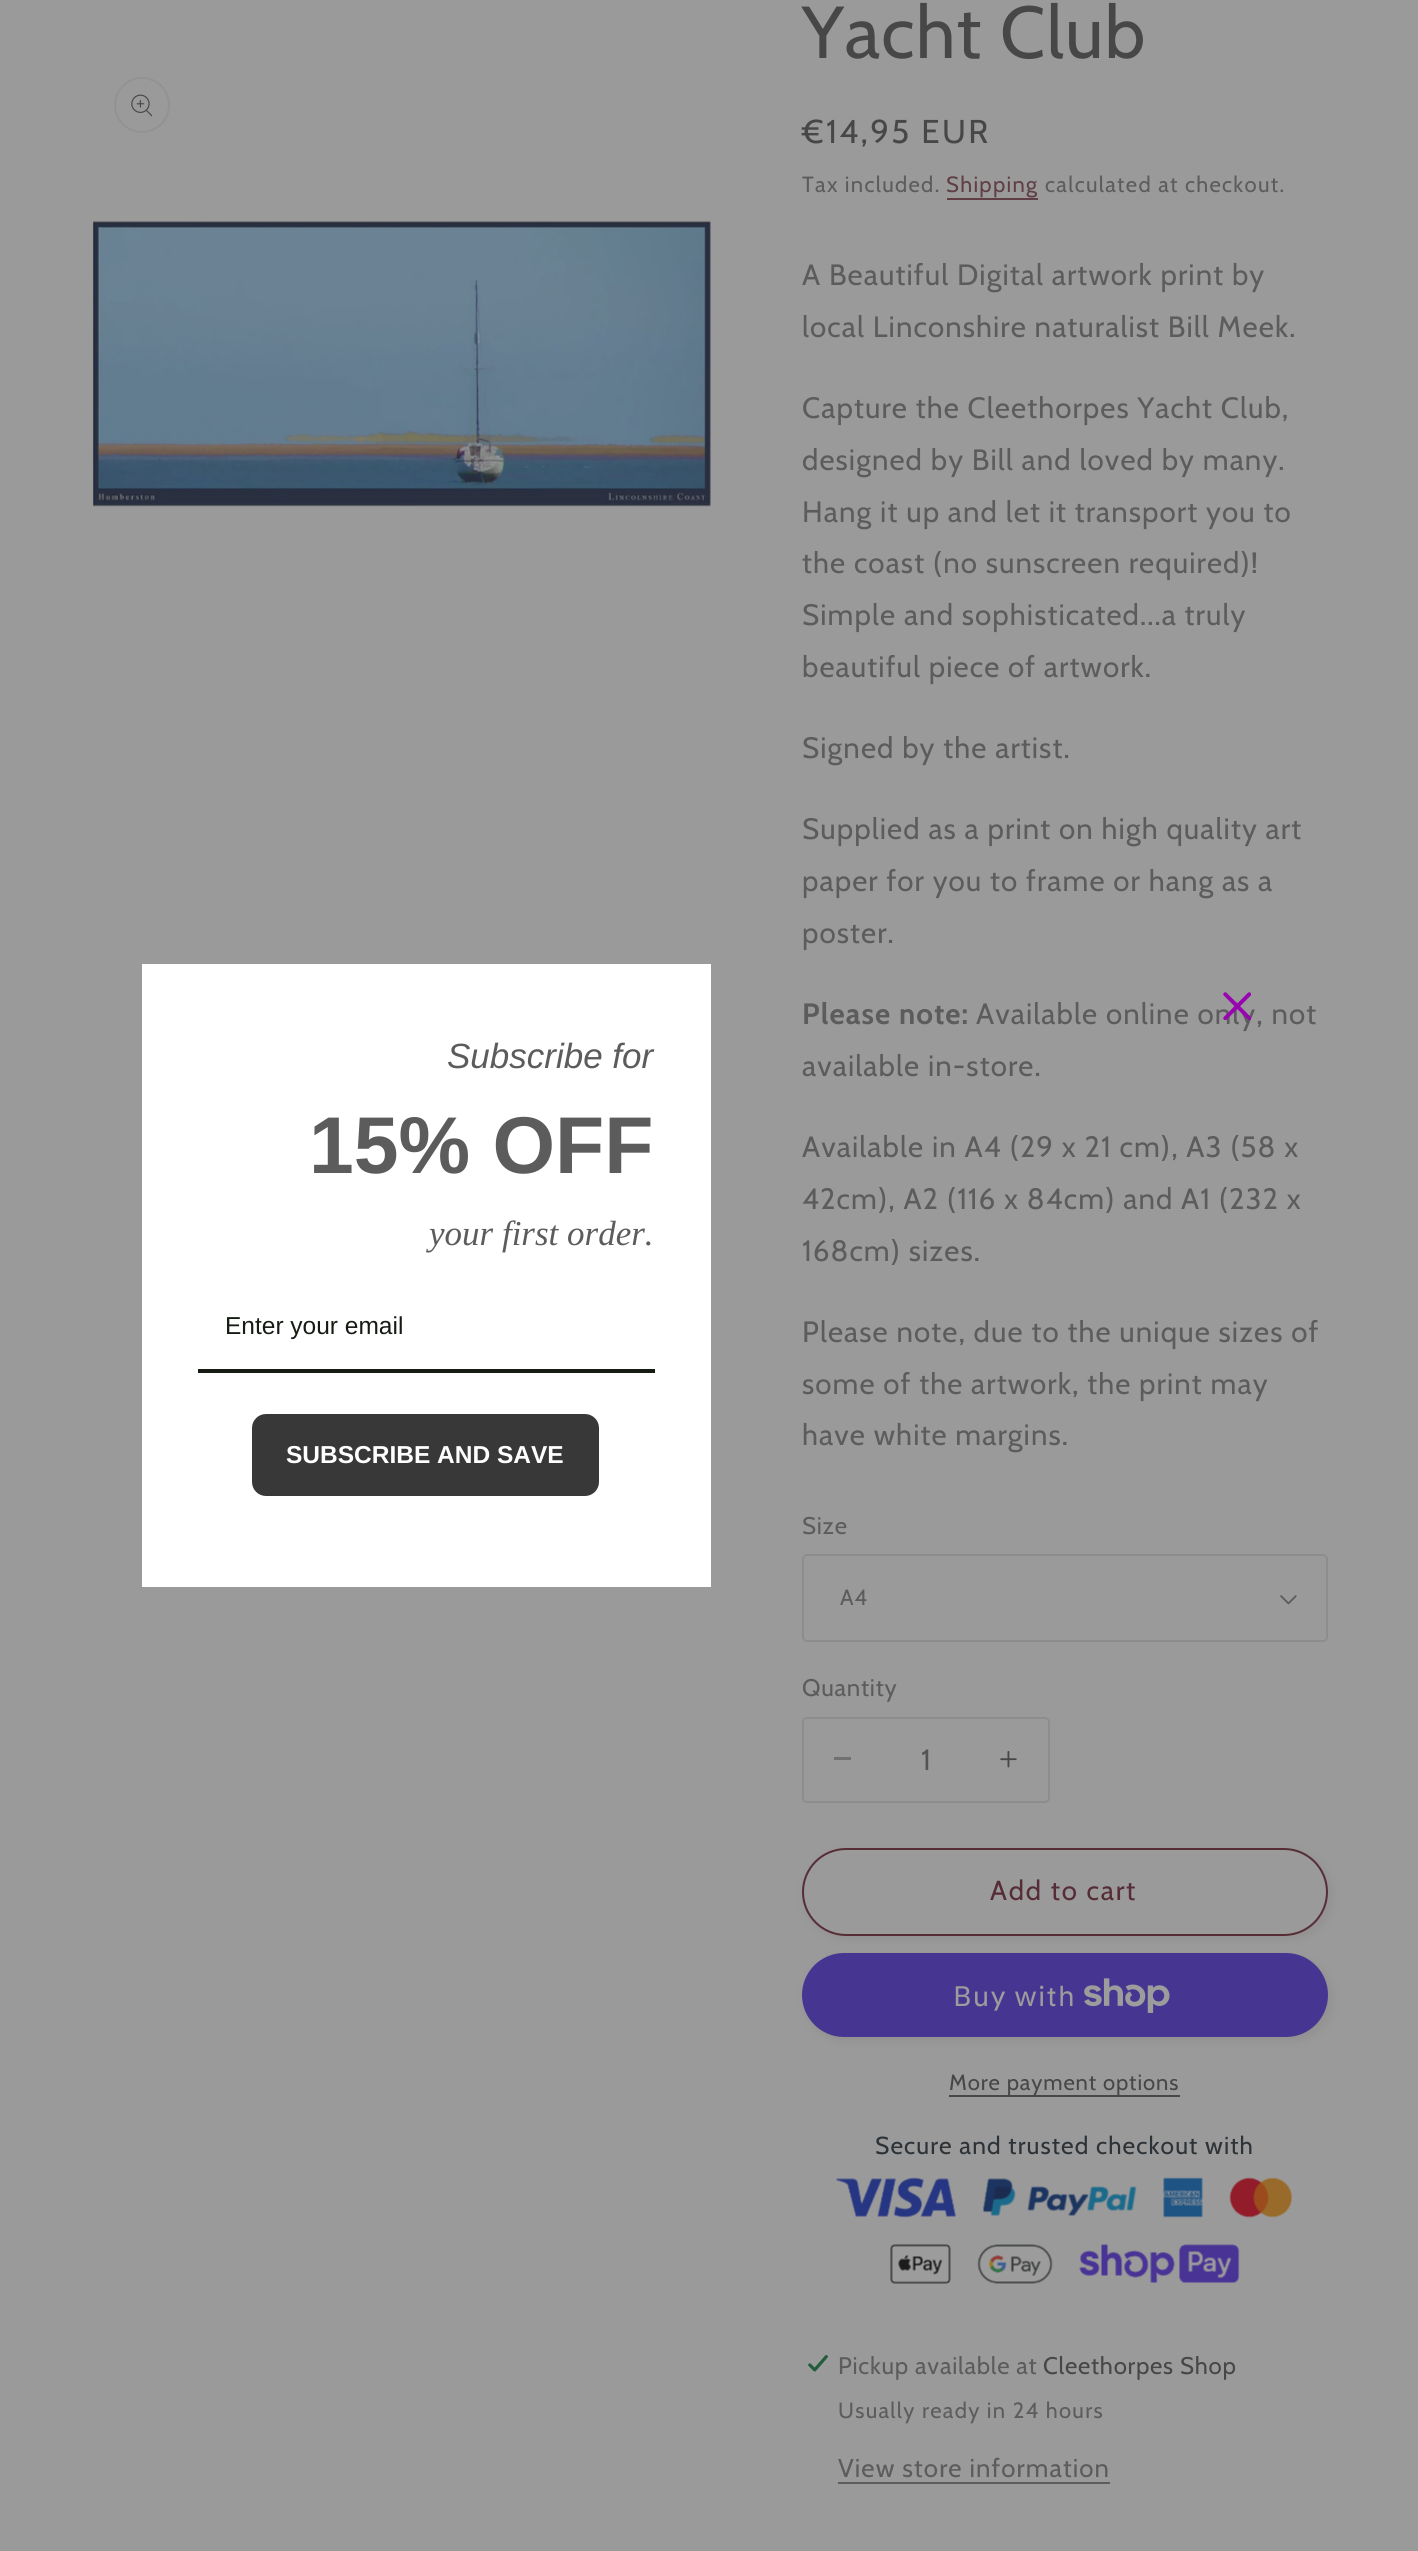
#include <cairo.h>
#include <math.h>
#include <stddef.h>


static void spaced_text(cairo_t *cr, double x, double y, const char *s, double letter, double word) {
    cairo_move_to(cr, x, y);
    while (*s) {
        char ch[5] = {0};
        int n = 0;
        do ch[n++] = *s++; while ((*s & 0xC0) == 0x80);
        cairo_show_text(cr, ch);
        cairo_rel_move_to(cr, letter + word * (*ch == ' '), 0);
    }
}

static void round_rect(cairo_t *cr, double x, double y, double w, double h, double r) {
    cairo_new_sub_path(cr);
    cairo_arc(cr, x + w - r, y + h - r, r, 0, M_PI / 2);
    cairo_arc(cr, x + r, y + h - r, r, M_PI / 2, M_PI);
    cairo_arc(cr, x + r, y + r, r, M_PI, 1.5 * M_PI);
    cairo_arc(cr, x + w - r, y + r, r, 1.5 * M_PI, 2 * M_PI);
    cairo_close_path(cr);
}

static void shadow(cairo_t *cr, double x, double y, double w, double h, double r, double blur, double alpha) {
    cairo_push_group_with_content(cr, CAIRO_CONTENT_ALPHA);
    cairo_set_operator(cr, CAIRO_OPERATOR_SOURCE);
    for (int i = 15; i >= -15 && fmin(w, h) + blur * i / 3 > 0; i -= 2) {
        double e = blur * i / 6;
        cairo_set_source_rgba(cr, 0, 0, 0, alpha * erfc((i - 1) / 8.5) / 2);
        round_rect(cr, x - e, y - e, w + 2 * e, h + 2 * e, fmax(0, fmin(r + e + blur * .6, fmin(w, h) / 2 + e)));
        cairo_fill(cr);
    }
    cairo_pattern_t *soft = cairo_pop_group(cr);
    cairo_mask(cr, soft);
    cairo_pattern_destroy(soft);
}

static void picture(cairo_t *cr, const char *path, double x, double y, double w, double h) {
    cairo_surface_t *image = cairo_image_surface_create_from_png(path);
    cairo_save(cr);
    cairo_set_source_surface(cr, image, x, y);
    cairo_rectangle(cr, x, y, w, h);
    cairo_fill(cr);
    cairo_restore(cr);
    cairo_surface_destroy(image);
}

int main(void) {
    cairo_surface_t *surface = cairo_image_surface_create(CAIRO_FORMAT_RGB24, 1418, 2551);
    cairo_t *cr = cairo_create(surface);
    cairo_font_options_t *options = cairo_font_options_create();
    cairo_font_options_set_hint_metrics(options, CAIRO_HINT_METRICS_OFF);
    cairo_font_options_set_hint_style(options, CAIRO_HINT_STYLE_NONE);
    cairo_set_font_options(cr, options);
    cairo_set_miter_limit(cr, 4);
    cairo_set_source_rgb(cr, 0.604, 0.604, 0.604);
    cairo_paint(cr);
    cairo_select_font_face(cr, "Cabin", CAIRO_FONT_SLANT_NORMAL, CAIRO_FONT_WEIGHT_NORMAL);
    cairo_set_font_size(cr, 29.4);
    cairo_set_source_rgb(cr, 0.365, 0.361, 0.361);
    spaced_text(cr, 976, 1024, "Available online only, not", 1.1, 0);
    picture(cr, "img1.png", 1223, 992, 28, 28);
    cairo_set_source_rgb(cr, 1, 1, 1);
    cairo_rectangle(cr, 142, 964, 569, 623);
    cairo_fill(cr);
    cairo_select_font_face(cr, "Liberation Sans", CAIRO_FONT_SLANT_ITALIC, CAIRO_FONT_WEIGHT_NORMAL);
    cairo_set_font_size(cr, 35);
    cairo_set_source_rgb(cr, 0.365, 0.361, 0.361);
    cairo_move_to(cr, 447, 1068);
    cairo_show_text(cr, "Subscribe for");
    cairo_select_font_face(cr, "Liberation Sans", CAIRO_FONT_SLANT_NORMAL, CAIRO_FONT_WEIGHT_BOLD);
    cairo_set_font_size(cr, 80.5);
    cairo_move_to(cr, 309, 1173);
    cairo_show_text(cr, "15% OFF");
    cairo_select_font_face(cr, "Liberation Serif", CAIRO_FONT_SLANT_ITALIC, CAIRO_FONT_WEIGHT_NORMAL);
    cairo_set_font_size(cr, 35);
    cairo_move_to(cr, 429, 1245);
    cairo_show_text(cr, "your first order.");
    cairo_set_source_rgb(cr, 0.086, 0.11, 0.082);
    cairo_rectangle(cr, 198, 1369, 457, 4);
    cairo_fill(cr);
    cairo_select_font_face(cr, "Liberation Sans", CAIRO_FONT_SLANT_NORMAL, CAIRO_FONT_WEIGHT_NORMAL);
    cairo_set_font_size(cr, 24.5);
    cairo_move_to(cr, 225, 1334);
    cairo_show_text(cr, "Enter your email");
    cairo_set_source_rgb(cr, 0.22, 0.22, 0.22);
    round_rect(cr, 252, 1414, 347, 82, 14);
    cairo_fill(cr);
    cairo_select_font_face(cr, "Liberation Sans", CAIRO_FONT_SLANT_NORMAL, CAIRO_FONT_WEIGHT_BOLD);
    cairo_set_source_rgb(cr, 1, 1, 1);
    cairo_move_to(cr, 286, 1463);
    cairo_show_text(cr, "SUBSCRIBE AND SAVE");
    cairo_new_path(cr);
    cairo_arc(cr, 142, 105, 27, 0, 2 * M_PI);
    cairo_set_source_rgb(cr, 0.573, 0.573, 0.573);
    cairo_stroke(cr);
    picture(cr, "img2.png", 131, 94, 21, 23);
    picture(cr, "img3.png", 93, 216, 618, 291);
    cairo_select_font_face(cr, "Cabin", CAIRO_FONT_SLANT_NORMAL, CAIRO_FONT_WEIGHT_NORMAL);
    cairo_set_font_size(cr, 73.5);
    cairo_set_source_rgb(cr, 0.282, 0.278, 0.278);
    spaced_text(cr, 802, 58, "Yacht Club", 1.1, 0);
    cairo_set_font_size(cr, 33);
    spaced_text(cr, 802, 143, "€14,95 EUR", 2.4, 0);
    cairo_set_font_size(cr, 22);
    cairo_set_source_rgb(cr, 0.365, 0.361, 0.361);
    spaced_text(cr, 802, 192, "Tax included.", 1.3, 0);
    cairo_set_source_rgb(cr, 0.376, 0.243, 0.271);
    spaced_text(cr, 946, 192, "Shipping", 1.3, 0);
    cairo_rectangle(cr, 947, 198, 91, 2);
    cairo_fill(cr);
    cairo_set_source_rgb(cr, 0.365, 0.361, 0.361);
    spaced_text(cr, 1045, 192, "calculated at checkout.", 1.3, 0);
    cairo_set_font_size(cr, 29.4);
    spaced_text(cr, 802, 285, "A Beautiful Digital artwork print by", 1.1, 0);
    spaced_text(cr, 802, 337, "local Linconshire naturalist Bill Meek.", 1.1, 0);
    spaced_text(cr, 802, 418, "Capture the Cleethorpes Yacht Club,", 1.1, 0);
    spaced_text(cr, 802, 470, "designed by Bill and loved by many.", 1.1, 0);
    spaced_text(cr, 802, 522, "Hang it up and let it transport you to", 1.1, 0);
    spaced_text(cr, 802, 573, "the coast (no sunscreen required)!", 1.1, 0);
    spaced_text(cr, 802, 625, "Simple and sophisticated...a truly", 1.1, 0);
    spaced_text(cr, 802, 677, "beautiful piece of artwork.", 1.1, 0);
    spaced_text(cr, 802, 758, "Signed by the artist.", 1.1, 0);
    spaced_text(cr, 802, 839, "Supplied as a print on high quality art", 1.1, 0);
    spaced_text(cr, 802, 891, "paper for you to frame or hang as a", 1.1, 0);
    spaced_text(cr, 802, 943, "poster.", 1.1, 0);
    cairo_select_font_face(cr, "Cabin", CAIRO_FONT_SLANT_NORMAL, CAIRO_FONT_WEIGHT_BOLD);
    spaced_text(cr, 802, 1024, "Please note:", 1.1, 0);
    cairo_select_font_face(cr, "Cabin", CAIRO_FONT_SLANT_NORMAL, CAIRO_FONT_WEIGHT_NORMAL);
    spaced_text(cr, 802, 1076, "available in-store.", 1.1, 0);
    spaced_text(cr, 802, 1157, "Available in A4 (29 x 21 cm), A3 (58 x", 1.1, 0);
    spaced_text(cr, 802, 1209, "42cm), A2 (116 x 84cm) and A1 (232 x", 1.1, 0);
    spaced_text(cr, 802, 1261, "168cm) sizes.", 1.1, 0);
    spaced_text(cr, 802, 1342, "Please note, due to the unique sizes of", 1.1, 0);
    spaced_text(cr, 802, 1394, "some of the artwork, the print may", 1.1, 0);
    spaced_text(cr, 802, 1445, "have white margins.", 1.1, 0);
    cairo_set_font_size(cr, 24);
    spaced_text(cr, 802, 1534, "Size", 0.75, 0);
    picture(cr, "img4.png", 1280, 1595, 17, 10);
    round_rect(cr, 803, 1555, 524, 86, 4);
    cairo_set_source_rgba(cr, 0.282, 0.278, 0.278, 0.15);
    cairo_stroke(cr);
    cairo_set_font_size(cr, 22);
    cairo_set_source_rgb(cr, 0.365, 0.361, 0.361);
    spaced_text(cr, 840, 1605, "A4", 0.75, 0);
    cairo_set_font_size(cr, 24);
    spaced_text(cr, 802, 1696, "Quantity", 0.75, 0);
    cairo_set_source_rgb(cr, 0.443, 0.443, 0.443);
    cairo_rectangle(cr, 834, 1757, 17, 3);
    cairo_fill(cr);
    picture(cr, "img5.png", 1000, 1751, 17, 17);
    round_rect(cr, 803, 1718, 246, 84, 4);
    cairo_set_source_rgba(cr, 0.282, 0.278, 0.278, 0.15);
    cairo_stroke(cr);
    cairo_set_font_size(cr, 29.4);
    cairo_set_source_rgb(cr, 0.333, 0.329, 0.329);
    cairo_move_to(cr, 921, 1770);
    cairo_show_text(cr, "1");
    cairo_set_source_rgb(cr, 0.29, 0.176, 0.2);
    shadow(cr, 805, 1852, 527, 87, 43.5, 4.5, 0.1);
    cairo_set_source_rgb(cr, 0.604, 0.604, 0.604);
    round_rect(cr, 802, 1848, 526, 88, 44);
    cairo_fill(cr);
    round_rect(cr, 803, 1849, 524, 86, 43);
    cairo_set_source_rgb(cr, 0.337, 0.176, 0.212);
    cairo_stroke(cr);
    cairo_set_font_size(cr, 27.5);
    spaced_text(cr, 990, 1900, "Add to cart", 1.75, 0);
    cairo_set_source_rgb(cr, 0.29, 0.176, 0.2);
    shadow(cr, 805, 1957, 527, 84, 42, 4.5, 0.1);
    cairo_set_source_rgb(cr, 0.275, 0.212, 0.573);
    round_rect(cr, 802, 1953, 526, 84, 42);
    cairo_fill(cr);
    cairo_select_font_face(cr, "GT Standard", CAIRO_FONT_SLANT_NORMAL, CAIRO_FONT_WEIGHT_NORMAL);
    cairo_set_font_size(cr, 28);
    cairo_set_source_rgb(cr, 0.612, 0.612, 0.612);
    spaced_text(cr, 953, 2006, "Buy with", 1.1, 0);
    picture(cr, "img6.png", 1084, 1978, 86, 35);
    cairo_set_source_rgb(cr, 0.282, 0.278, 0.278);
    cairo_rectangle(cr, 949, 2095, 231, 2);
    cairo_fill(cr);
    cairo_select_font_face(cr, "Cabin", CAIRO_FONT_SLANT_NORMAL, CAIRO_FONT_WEIGHT_NORMAL);
    cairo_set_font_size(cr, 22);
    spaced_text(cr, 949, 2090, "More payment options", 0.9, 0);
    cairo_set_font_size(cr, 24.5);
    cairo_set_source_rgb(cr, 0.176, 0.196, 0.216);
    spaced_text(cr, 875, 2154, "Secure and trusted checkout with", 1.1, 0);
    picture(cr, "img7.png", 836, 2177, 120, 41);
    picture(cr, "img8.png", 983, 2178, 154, 38);
    picture(cr, "img9.png", 1163, 2177, 40, 41);
    picture(cr, "img10.png", 1229, 2177, 63, 41);
    picture(cr, "img11.png", 890, 2244, 61, 40);
    picture(cr, "img12.png", 977, 2244, 76, 40);
    picture(cr, "img13.png", 1079, 2244, 161, 39);
    picture(cr, "img14.png", 808, 2355, 20, 17);
    cairo_set_font_size(cr, 24);
    cairo_set_source_rgb(cr, 0.365, 0.361, 0.361);
    spaced_text(cr, 838, 2374, "Pickup available at", 0.75, 0);
    cairo_set_source_rgb(cr, 0.282, 0.278, 0.278);
    spaced_text(cr, 1043, 2374, "Cleethorpes Shop", 0.75, 0);
    cairo_set_font_size(cr, 22);
    cairo_set_source_rgb(cr, 0.365, 0.361, 0.361);
    spaced_text(cr, 838, 2418, "Usually ready in 24 hours", 1.3, 0);
    cairo_set_font_size(cr, 25.75);
    spaced_text(cr, 838, 2477, "View store information", 1.1, 0);
    cairo_rectangle(cr, 838, 2482, 272, 2);
    cairo_fill(cr);
    cairo_surface_write_to_png(surface, "page.png");
    cairo_font_options_destroy(options);
    cairo_destroy(cr);
    cairo_surface_destroy(surface);
    return 0;
}
